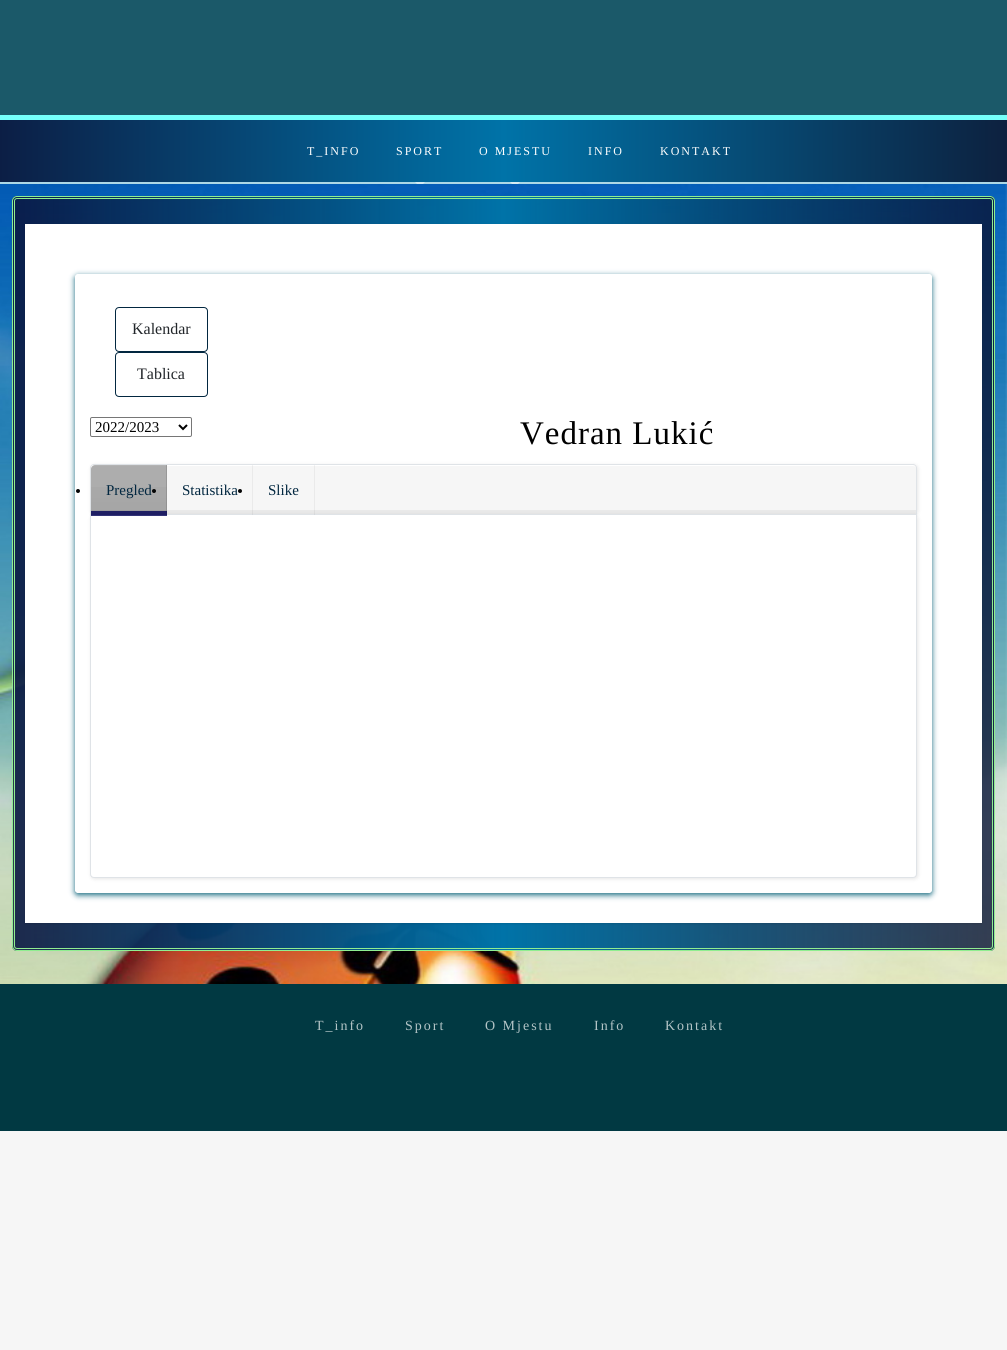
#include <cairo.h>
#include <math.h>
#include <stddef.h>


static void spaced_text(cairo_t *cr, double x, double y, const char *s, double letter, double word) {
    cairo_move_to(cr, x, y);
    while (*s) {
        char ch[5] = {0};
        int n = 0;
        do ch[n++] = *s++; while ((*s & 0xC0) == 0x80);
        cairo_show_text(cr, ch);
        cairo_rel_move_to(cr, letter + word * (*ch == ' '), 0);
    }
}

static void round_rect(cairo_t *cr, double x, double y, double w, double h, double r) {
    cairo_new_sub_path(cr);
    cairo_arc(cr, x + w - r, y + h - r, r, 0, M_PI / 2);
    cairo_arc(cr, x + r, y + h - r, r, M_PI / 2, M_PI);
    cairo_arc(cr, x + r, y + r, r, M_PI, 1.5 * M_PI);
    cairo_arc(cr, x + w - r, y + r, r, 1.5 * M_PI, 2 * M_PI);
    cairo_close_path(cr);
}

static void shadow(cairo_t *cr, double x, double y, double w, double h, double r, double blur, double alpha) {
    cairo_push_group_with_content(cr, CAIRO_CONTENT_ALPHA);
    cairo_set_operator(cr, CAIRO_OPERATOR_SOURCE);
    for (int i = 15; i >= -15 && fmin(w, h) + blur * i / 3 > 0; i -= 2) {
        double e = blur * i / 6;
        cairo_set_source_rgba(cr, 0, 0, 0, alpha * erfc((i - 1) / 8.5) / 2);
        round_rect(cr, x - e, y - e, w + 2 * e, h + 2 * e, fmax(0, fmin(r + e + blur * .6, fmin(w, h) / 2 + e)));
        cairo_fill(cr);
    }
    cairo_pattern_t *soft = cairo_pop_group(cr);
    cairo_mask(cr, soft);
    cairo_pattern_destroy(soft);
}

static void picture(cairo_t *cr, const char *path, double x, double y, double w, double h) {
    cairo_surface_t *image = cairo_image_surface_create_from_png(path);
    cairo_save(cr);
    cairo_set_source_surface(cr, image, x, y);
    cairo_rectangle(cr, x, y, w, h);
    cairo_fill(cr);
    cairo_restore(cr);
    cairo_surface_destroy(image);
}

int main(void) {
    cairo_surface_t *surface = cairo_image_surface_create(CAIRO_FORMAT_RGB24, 1007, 1350);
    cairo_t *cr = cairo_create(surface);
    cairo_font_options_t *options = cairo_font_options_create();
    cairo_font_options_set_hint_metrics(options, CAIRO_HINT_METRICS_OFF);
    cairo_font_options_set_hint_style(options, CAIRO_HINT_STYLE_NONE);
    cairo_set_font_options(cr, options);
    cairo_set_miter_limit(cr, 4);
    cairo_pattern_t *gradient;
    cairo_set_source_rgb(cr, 0.961, 0.961, 0.961);
    cairo_paint(cr);
    cairo_set_source_rgb(cr, 0.106, 0.349, 0.412);
    cairo_rectangle(cr, 0, 0, 1007, 115);
    cairo_fill(cr);
    cairo_set_source_rgb(cr, 0, 0, 0);
    shadow(cr, 0, 117, 1007, 69, 0, 1, 0.05);
    gradient = cairo_pattern_create_linear(0, 151, 1007, 151);
    cairo_pattern_add_color_stop_rgba(gradient, 0, 0.047, 0.118, 0.271, 1);
    cairo_pattern_add_color_stop_rgba(gradient, 0.5, 0, 0.451, 0.659, 1);
    cairo_pattern_add_color_stop_rgba(gradient, 1, 0.051, 0.129, 0.247, 1);
    cairo_set_source(cr, gradient);
    cairo_pattern_destroy(gradient);
    cairo_rectangle(cr, 0, 120, 1007, 62);
    cairo_fill(cr);
    cairo_set_source_rgb(cr, 0.459, 1, 0.98);
    cairo_rectangle(cr, 0, 115, 1007, 5);
    cairo_fill(cr);
    cairo_set_source_rgb(cr, 0.678, 0.847, 0.902);
    cairo_rectangle(cr, 0, 182, 1007, 2);
    cairo_fill(cr);
    cairo_select_font_face(cr, "Liberation Serif", CAIRO_FONT_SLANT_NORMAL, CAIRO_FONT_WEIGHT_NORMAL);
    cairo_set_font_size(cr, 12);
    cairo_set_source_rgb(cr, 1, 1, 1);
    spaced_text(cr, 307, 155, "T_INFO", 2, 0);
    spaced_text(cr, 396, 155, "SPORT", 2, 0);
    cairo_set_source_rgba(cr, 1, 1, 1, 0.5);
    cairo_new_path(cr);
    cairo_move_to(cr, 415, 182);
    cairo_line_to(cr, 425, 182);
    cairo_line_to(cr, 420, 187);
    cairo_close_path(cr);
    cairo_fill(cr);
    cairo_set_source_rgb(cr, 1, 1, 1);
    spaced_text(cr, 479, 155, "O MJESTU", 2, 0);
    cairo_set_source_rgba(cr, 1, 1, 1, 0.5);
    cairo_new_path(cr);
    cairo_move_to(cr, 510, 182);
    cairo_line_to(cr, 520, 182);
    cairo_line_to(cr, 515, 187);
    cairo_close_path(cr);
    cairo_fill(cr);
    cairo_set_source_rgb(cr, 1, 1, 1);
    spaced_text(cr, 588, 155, "INFO", 2, 0);
    spaced_text(cr, 660, 155, "KONTAKT", 2, 0);
    picture(cr, "img1.png", 0, 184, 1007, 800);
    round_rect(cr, 12.5, 196.5, 982, 754, 4.5);
    cairo_set_source_rgb(cr, 0.565, 0.933, 0.565);
    cairo_set_line_width(cr, 1);
    cairo_stroke(cr);
    round_rect(cr, 14.5, 198.5, 978, 750, 2.5);
    cairo_stroke(cr);
    cairo_set_source_rgb(cr, 0, 0, 0);
    shadow(cr, 25, 225, 957, 699, 0, 1, 0.1);
    cairo_set_source_rgb(cr, 1, 1, 1);
    cairo_rectangle(cr, 25, 224, 957, 699);
    cairo_fill(cr);
    cairo_save(cr);
    cairo_set_fill_rule(cr, CAIRO_FILL_RULE_EVEN_ODD);
    cairo_new_path(cr);
    cairo_move_to(cr, 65, 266);
    cairo_line_to(cr, 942, 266);
    cairo_line_to(cr, 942, 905);
    cairo_line_to(cr, 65, 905);
    cairo_close_path(cr);
    cairo_move_to(cr, 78, 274);
    cairo_line_to(cr, 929, 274);
    cairo_curve_to(cr, 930.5, 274, 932, 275.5, 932, 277);
    cairo_line_to(cr, 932, 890);
    cairo_curve_to(cr, 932, 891.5, 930.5, 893, 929, 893);
    cairo_line_to(cr, 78, 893);
    cairo_curve_to(cr, 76.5, 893, 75, 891.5, 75, 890);
    cairo_line_to(cr, 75, 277);
    cairo_curve_to(cr, 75, 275.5, 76.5, 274, 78, 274);
    cairo_close_path(cr);
    cairo_clip(cr);
    cairo_set_source_rgb(cr, 0.086, 0.416, 0.502);
    shadow(cr, 75, 276, 857, 619, 3, 3, 1);
    cairo_restore(cr);
    round_rect(cr, 115.5, 307.5, 92, 44, 3.5);
    cairo_set_source_rgb(cr, 0.008, 0.153, 0.251);
    cairo_stroke(cr);
    cairo_set_font_size(cr, 16);
    cairo_set_source_rgb(cr, 0.133, 0.149, 0.165);
    cairo_move_to(cr, 132, 334);
    cairo_show_text(cr, "Kalendar");
    round_rect(cr, 115.5, 352.5, 92, 44, 3.5);
    cairo_set_source_rgb(cr, 0.008, 0.153, 0.251);
    cairo_stroke(cr);
    cairo_set_source_rgb(cr, 0.133, 0.149, 0.165);
    cairo_move_to(cr, 137, 379);
    cairo_show_text(cr, "Tablica");
    round_rect(cr, 90.5, 417.5, 101, 19, 1.5);
    cairo_set_source_rgb(cr, 0.463, 0.463, 0.463);
    cairo_stroke(cr);
    cairo_new_path(cr);
    cairo_move_to(cr, 179, 425);
    cairo_line_to(cr, 183, 429);
    cairo_line_to(cr, 187, 425);
    cairo_set_source_rgb(cr, 0, 0, 0);
    cairo_set_line_width(cr, 2);
    cairo_stroke(cr);
    cairo_set_font_size(cr, 15);
    cairo_move_to(cr, 95, 432);
    cairo_show_text(cr, "2022/2023");
    cairo_set_font_size(cr, 33);
    spaced_text(cr, 520, 444, "Vedran Lukić", 1, 0);
    cairo_set_source_rgb(cr, 0, 0, 0);
    shadow(cr, 91, 465, 827, 50, 4, 2, 0.1);
    cairo_set_source_rgb(cr, 0.961, 0.961, 0.961);
    cairo_new_path(cr);
    cairo_move_to(cr, 94, 464);
    cairo_line_to(cr, 913, 464);
    cairo_curve_to(cr, 915, 464, 917, 466, 917, 468);
    cairo_line_to(cr, 917, 514);
    cairo_line_to(cr, 90, 514);
    cairo_line_to(cr, 90, 468);
    cairo_curve_to(cr, 90, 466, 92, 464, 94, 464);
    cairo_close_path(cr);
    cairo_fill(cr);
    cairo_set_source_rgb(cr, 0.914, 0.914, 0.914);
    cairo_rectangle(cr, 91, 510, 825, 4);
    cairo_fill(cr);
    cairo_set_source_rgb(cr, 1, 1, 1);
    cairo_new_path(cr);
    cairo_move_to(cr, 94, 466);
    cairo_line_to(cr, 913, 466);
    cairo_curve_to(cr, 915, 466, 916, 467, 916, 469);
    cairo_curve_to(cr, 916, 467, 915, 465, 913, 465);
    cairo_line_to(cr, 94, 465);
    cairo_curve_to(cr, 92, 465, 91, 467, 91, 469);
    cairo_curve_to(cr, 91, 467, 92, 466, 94, 466);
    cairo_close_path(cr);
    cairo_fill(cr);
    cairo_set_source_rgb(cr, 0.875, 0.89, 0.906);
    cairo_set_fill_rule(cr, CAIRO_FILL_RULE_EVEN_ODD);
    cairo_new_path(cr);
    cairo_move_to(cr, 94, 464);
    cairo_line_to(cr, 913, 464);
    cairo_curve_to(cr, 915, 464, 917, 466, 917, 468);
    cairo_line_to(cr, 917, 514);
    cairo_line_to(cr, 90, 514);
    cairo_line_to(cr, 90, 468);
    cairo_curve_to(cr, 90, 466, 92, 464, 94, 464);
    cairo_close_path(cr);
    cairo_move_to(cr, 94, 465);
    cairo_line_to(cr, 913, 465);
    cairo_curve_to(cr, 915, 465, 916, 466, 916, 468);
    cairo_line_to(cr, 916, 514);
    cairo_line_to(cr, 91, 514);
    cairo_line_to(cr, 91, 468);
    cairo_curve_to(cr, 91, 466, 92, 465, 94, 465);
    cairo_close_path(cr);
    cairo_fill(cr);
    cairo_set_source_rgb(cr, 0.02, 0.02, 0.02);
    cairo_arc(cr, 78, 491, 2, 0, 2 * M_PI);
    cairo_fill(cr);
    cairo_arc(cr, 154, 491, 2, 0, 2 * M_PI);
    cairo_fill(cr);
    cairo_set_source_rgb(cr, 0, 0, 0);
    shadow(cr, 91, 515, 827, 364, 4, 2, 0.1);
    cairo_set_source_rgb(cr, 1, 1, 1);
    cairo_new_path(cr);
    cairo_move_to(cr, 90.5, 514.5);
    cairo_line_to(cr, 916.5, 514.5);
    cairo_line_to(cr, 916.5, 874);
    cairo_curve_to(cr, 916.5, 876, 915, 877.5, 913, 877.5);
    cairo_line_to(cr, 94, 877.5);
    cairo_curve_to(cr, 92, 877.5, 90.5, 876, 90.5, 874);
    cairo_close_path(cr);
    cairo_fill_preserve(cr);
    cairo_set_source_rgb(cr, 0.875, 0.89, 0.906);
    cairo_set_line_width(cr, 1);
    cairo_stroke(cr);
    cairo_set_source_rgba(cr, 0, 0, 0, 0.3);
    cairo_new_path(cr);
    cairo_move_to(cr, 95, 465);
    cairo_line_to(cr, 167, 465);
    cairo_line_to(cr, 167, 515);
    cairo_line_to(cr, 91, 515);
    cairo_line_to(cr, 91, 469);
    cairo_curve_to(cr, 91, 467, 93, 465, 95, 465);
    cairo_close_path(cr);
    cairo_fill(cr);
    gradient = cairo_pattern_create_linear(129, 465, 129, 515);
    cairo_pattern_add_color_stop_rgba(gradient, 0, 0, 0, 0, 0);
    cairo_pattern_add_color_stop_rgba(gradient, 1, 0, 0, 0, 0.05);
    cairo_set_source(cr, gradient);
    cairo_pattern_destroy(gradient);
    cairo_rectangle(cr, 91, 487, 76, 28);
    cairo_fill(cr);
    cairo_set_source_rgba(cr, 0, 0, 0, 0.08);
    cairo_rectangle(cr, 166, 465, 1, 50);
    cairo_fill(cr);
    cairo_set_font_size(cr, 15);
    cairo_set_source_rgb(cr, 0.008, 0.153, 0.251);
    cairo_move_to(cr, 106, 495);
    cairo_show_text(cr, "Pregled");
    cairo_set_source_rgba(cr, 0.004, 0.004, 0.337, 0.8);
    cairo_rectangle(cr, 91, 511, 76, 5);
    cairo_fill(cr);
    cairo_set_source_rgba(cr, 0, 0, 0, 0.05);
    cairo_rectangle(cr, 166, 465, 1, 50);
    cairo_fill(cr);
    cairo_set_source_rgb(cr, 0.008, 0.153, 0.251);
    cairo_move_to(cr, 182, 495);
    cairo_show_text(cr, "Statistika");
    cairo_set_source_rgb(cr, 0.02, 0.02, 0.02);
    cairo_new_path(cr);
    cairo_arc(cr, 240, 491, 2, 0, 2 * M_PI);
    cairo_fill(cr);
    cairo_set_source_rgba(cr, 0, 0, 0, 0.05);
    cairo_rectangle(cr, 314, 465, 1, 50);
    cairo_fill(cr);
    cairo_rectangle(cr, 252, 465, 1, 50);
    cairo_fill(cr);
    cairo_set_source_rgb(cr, 0.008, 0.153, 0.251);
    cairo_move_to(cr, 268, 495);
    cairo_show_text(cr, "Slike");
    cairo_set_source_rgb(cr, 0.004, 0.224, 0.259);
    cairo_rectangle(cr, 0, 984, 1007, 147);
    cairo_fill(cr);
    cairo_set_font_size(cr, 14);
    cairo_set_source_rgb(cr, 0.702, 0.769, 0.776);
    spaced_text(cr, 315, 1030, "T_info", 2, 0);
    spaced_text(cr, 405, 1030, "Sport", 2, 0);
    spaced_text(cr, 485, 1030, "O Mjestu", 2, 0);
    spaced_text(cr, 594, 1030, "Info", 2, 0);
    spaced_text(cr, 665, 1030, "Kontakt", 2, 0);
    cairo_surface_write_to_png(surface, "page.png");
    cairo_font_options_destroy(options);
    cairo_destroy(cr);
    cairo_surface_destroy(surface);
    return 0;
}
